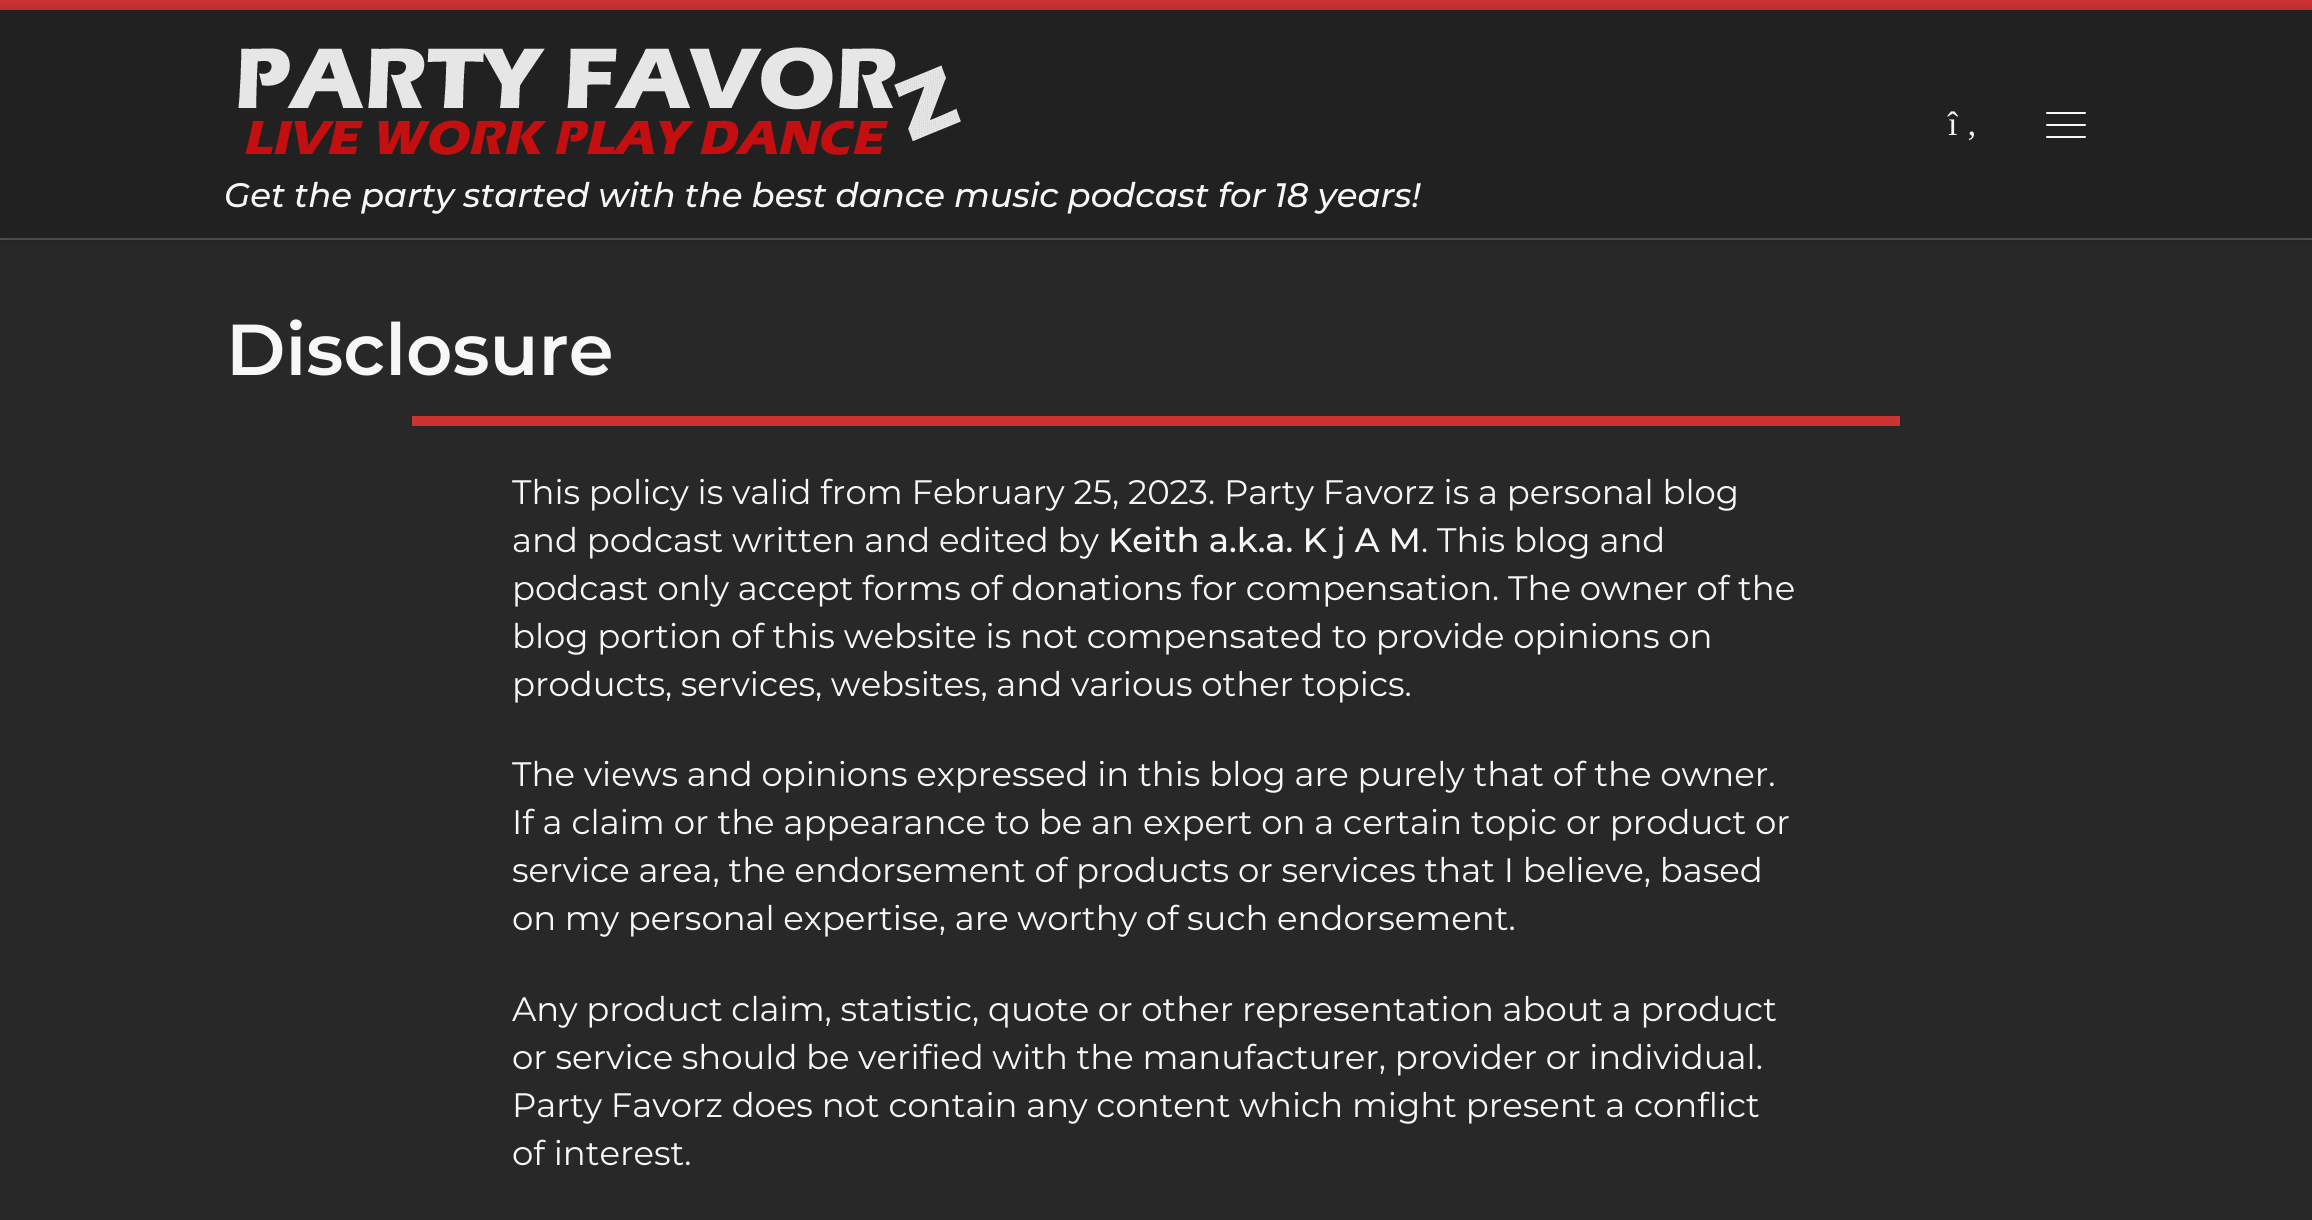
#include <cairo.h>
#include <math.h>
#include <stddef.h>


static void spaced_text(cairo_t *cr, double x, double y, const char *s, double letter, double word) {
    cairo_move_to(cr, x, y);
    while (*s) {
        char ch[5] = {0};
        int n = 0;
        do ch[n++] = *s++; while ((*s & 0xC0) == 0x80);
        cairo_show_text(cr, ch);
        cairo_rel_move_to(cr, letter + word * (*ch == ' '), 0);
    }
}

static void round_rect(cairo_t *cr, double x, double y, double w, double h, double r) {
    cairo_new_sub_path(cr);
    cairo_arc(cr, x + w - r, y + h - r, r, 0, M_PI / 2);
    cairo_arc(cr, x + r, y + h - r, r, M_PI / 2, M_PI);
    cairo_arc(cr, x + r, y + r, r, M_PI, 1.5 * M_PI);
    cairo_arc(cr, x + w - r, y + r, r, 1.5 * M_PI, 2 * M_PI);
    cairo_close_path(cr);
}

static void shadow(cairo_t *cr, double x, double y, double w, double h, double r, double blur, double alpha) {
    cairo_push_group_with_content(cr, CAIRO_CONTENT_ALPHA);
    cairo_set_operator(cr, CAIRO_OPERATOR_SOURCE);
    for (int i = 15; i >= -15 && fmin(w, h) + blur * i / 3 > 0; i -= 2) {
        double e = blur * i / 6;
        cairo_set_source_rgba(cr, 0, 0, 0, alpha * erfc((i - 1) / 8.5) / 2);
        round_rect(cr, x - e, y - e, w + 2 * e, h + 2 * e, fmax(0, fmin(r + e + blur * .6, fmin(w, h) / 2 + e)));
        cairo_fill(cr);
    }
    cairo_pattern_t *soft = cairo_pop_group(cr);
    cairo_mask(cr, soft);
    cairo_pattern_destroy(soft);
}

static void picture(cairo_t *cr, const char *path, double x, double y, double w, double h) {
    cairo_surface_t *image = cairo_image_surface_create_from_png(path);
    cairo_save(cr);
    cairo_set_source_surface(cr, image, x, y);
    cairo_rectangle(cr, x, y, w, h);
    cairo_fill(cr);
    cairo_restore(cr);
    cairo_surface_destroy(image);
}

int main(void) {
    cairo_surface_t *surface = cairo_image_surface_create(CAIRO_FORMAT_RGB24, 2312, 1220);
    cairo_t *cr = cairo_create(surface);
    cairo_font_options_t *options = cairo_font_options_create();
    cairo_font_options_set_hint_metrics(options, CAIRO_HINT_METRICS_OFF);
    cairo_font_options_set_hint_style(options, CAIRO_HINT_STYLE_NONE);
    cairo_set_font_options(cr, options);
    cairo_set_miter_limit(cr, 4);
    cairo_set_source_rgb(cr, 0.157, 0.157, 0.157);
    cairo_paint(cr);
    cairo_set_source_rgb(cr, 0.129, 0.129, 0.129);
    cairo_rectangle(cr, 0, 10, 2312, 228);
    cairo_fill(cr);
    cairo_set_source_rgb(cr, 0.8, 0.2, 0.2);
    cairo_rectangle(cr, 0, 0, 2312, 10);
    cairo_fill(cr);
    cairo_set_source_rgb(cr, 0.322, 0.322, 0.322);
    cairo_rectangle(cr, 0, 238, 2312, 2);
    cairo_fill(cr);
    cairo_save(cr);
    cairo_set_fill_rule(cr, CAIRO_FILL_RULE_EVEN_ODD);
    cairo_new_path(cr);
    cairo_move_to(cr, 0, 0);
    cairo_line_to(cr, 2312, 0);
    cairo_line_to(cr, 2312, 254);
    cairo_line_to(cr, 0, 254);
    cairo_close_path(cr);
    cairo_move_to(cr, 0, 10);
    cairo_line_to(cr, 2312, 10);
    cairo_line_to(cr, 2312, 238);
    cairo_line_to(cr, 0, 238);
    cairo_close_path(cr);
    cairo_clip(cr);
    cairo_set_source_rgb(cr, 0, 0, 0);
    shadow(cr, 0, 10, 2312, 228, 0, 5, 0.2);
    cairo_restore(cr);
    cairo_select_font_face(cr, "Liberation Serif", CAIRO_FONT_SLANT_NORMAL, CAIRO_FONT_WEIGHT_NORMAL);
    cairo_set_font_size(cr, 33.9);
    cairo_set_source_rgb(cr, 0.969, 0.965, 0.961);
    cairo_move_to(cr, 1948, 135);
    cairo_show_text(cr, "î ‚");
    round_rect(cr, 2046, 112, 40, 2, 1);
    cairo_fill(cr);
    round_rect(cr, 2046, 124, 40, 2, 1);
    cairo_fill(cr);
    round_rect(cr, 2046, 136, 40, 2, 1);
    cairo_fill(cr);
    picture(cr, "img1.png", 238, 47, 723, 108);
    cairo_select_font_face(cr, "Montserrat Thin", CAIRO_FONT_SLANT_ITALIC, CAIRO_FONT_WEIGHT_NORMAL);
    spaced_text(cr, 224, 207, "Get the party started with the best dance music podcast for 18 years!", 0, -0.1);
    cairo_select_font_face(cr, "Montserrat Thin", CAIRO_FONT_SLANT_NORMAL, CAIRO_FONT_WEIGHT_NORMAL);
    cairo_set_font_size(cr, 72);
    cairo_move_to(cr, 226, 375);
    cairo_show_text(cr, "Disclosure");
    cairo_set_source_rgb(cr, 0.8, 0.2, 0.2);
    cairo_rectangle(cr, 412, 416, 1488, 10);
    cairo_fill(cr);
    cairo_select_font_face(cr, "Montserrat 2 Thin", CAIRO_FONT_SLANT_NORMAL, CAIRO_FONT_WEIGHT_NORMAL);
    cairo_set_font_size(cr, 33.9);
    cairo_set_source_rgb(cr, 0.969, 0.965, 0.961);
    spaced_text(cr, 512, 504, "This policy is valid from February 25, 2023. Party Favorz is a personal blog", 0, -0.1);
    spaced_text(cr, 512, 552, "and podcast written and edited by", 0, -0.1);
    cairo_select_font_face(cr, "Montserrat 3 Thin", CAIRO_FONT_SLANT_NORMAL, CAIRO_FONT_WEIGHT_NORMAL);
    cairo_move_to(cr, 1108, 552);
    cairo_show_text(cr, "Keith a.k.a. K j A M");
    cairo_select_font_face(cr, "Montserrat 2 Thin", CAIRO_FONT_SLANT_NORMAL, CAIRO_FONT_WEIGHT_NORMAL);
    cairo_move_to(cr, 1421, 552);
    cairo_show_text(cr, ". This blog and");
    spaced_text(cr, 512, 600, "podcast only accept forms of donations for compensation. The owner of the", 0, -0.1);
    spaced_text(cr, 512, 648, "blog portion of this website is not compensated to provide opinions on", 0, -0.1);
    spaced_text(cr, 512, 696, "products, services, websites, and various other topics.", 0, -0.25);
    spaced_text(cr, 512, 786, "The views and opinions expressed in this blog are purely that of the owner.", 0, -0.1);
    cairo_move_to(cr, 512, 834);
    cairo_show_text(cr, "If a claim or the appearance to be an expert on a certain topic or product or");
    spaced_text(cr, 512, 882, "service area, the endorsement of products or services that I believe, based", 0, -0.1);
    spaced_text(cr, 512, 930, "on my personal expertise, are worthy of such endorsement.", 0, -0.25);
    spaced_text(cr, 512, 1021, "Any product claim, statistic, quote or other representation about a product", 0, -0.25);
    spaced_text(cr, 512, 1069, "or service should be verified with the manufacturer, provider or individual.", 0, -0.25);
    spaced_text(cr, 512, 1117, "Party Favorz does not contain any content which might present a conflict", 0, -0.1);
    cairo_move_to(cr, 512, 1165);
    cairo_show_text(cr, "of interest.");
    cairo_surface_write_to_png(surface, "page.png");
    cairo_font_options_destroy(options);
    cairo_destroy(cr);
    cairo_surface_destroy(surface);
    return 0;
}
